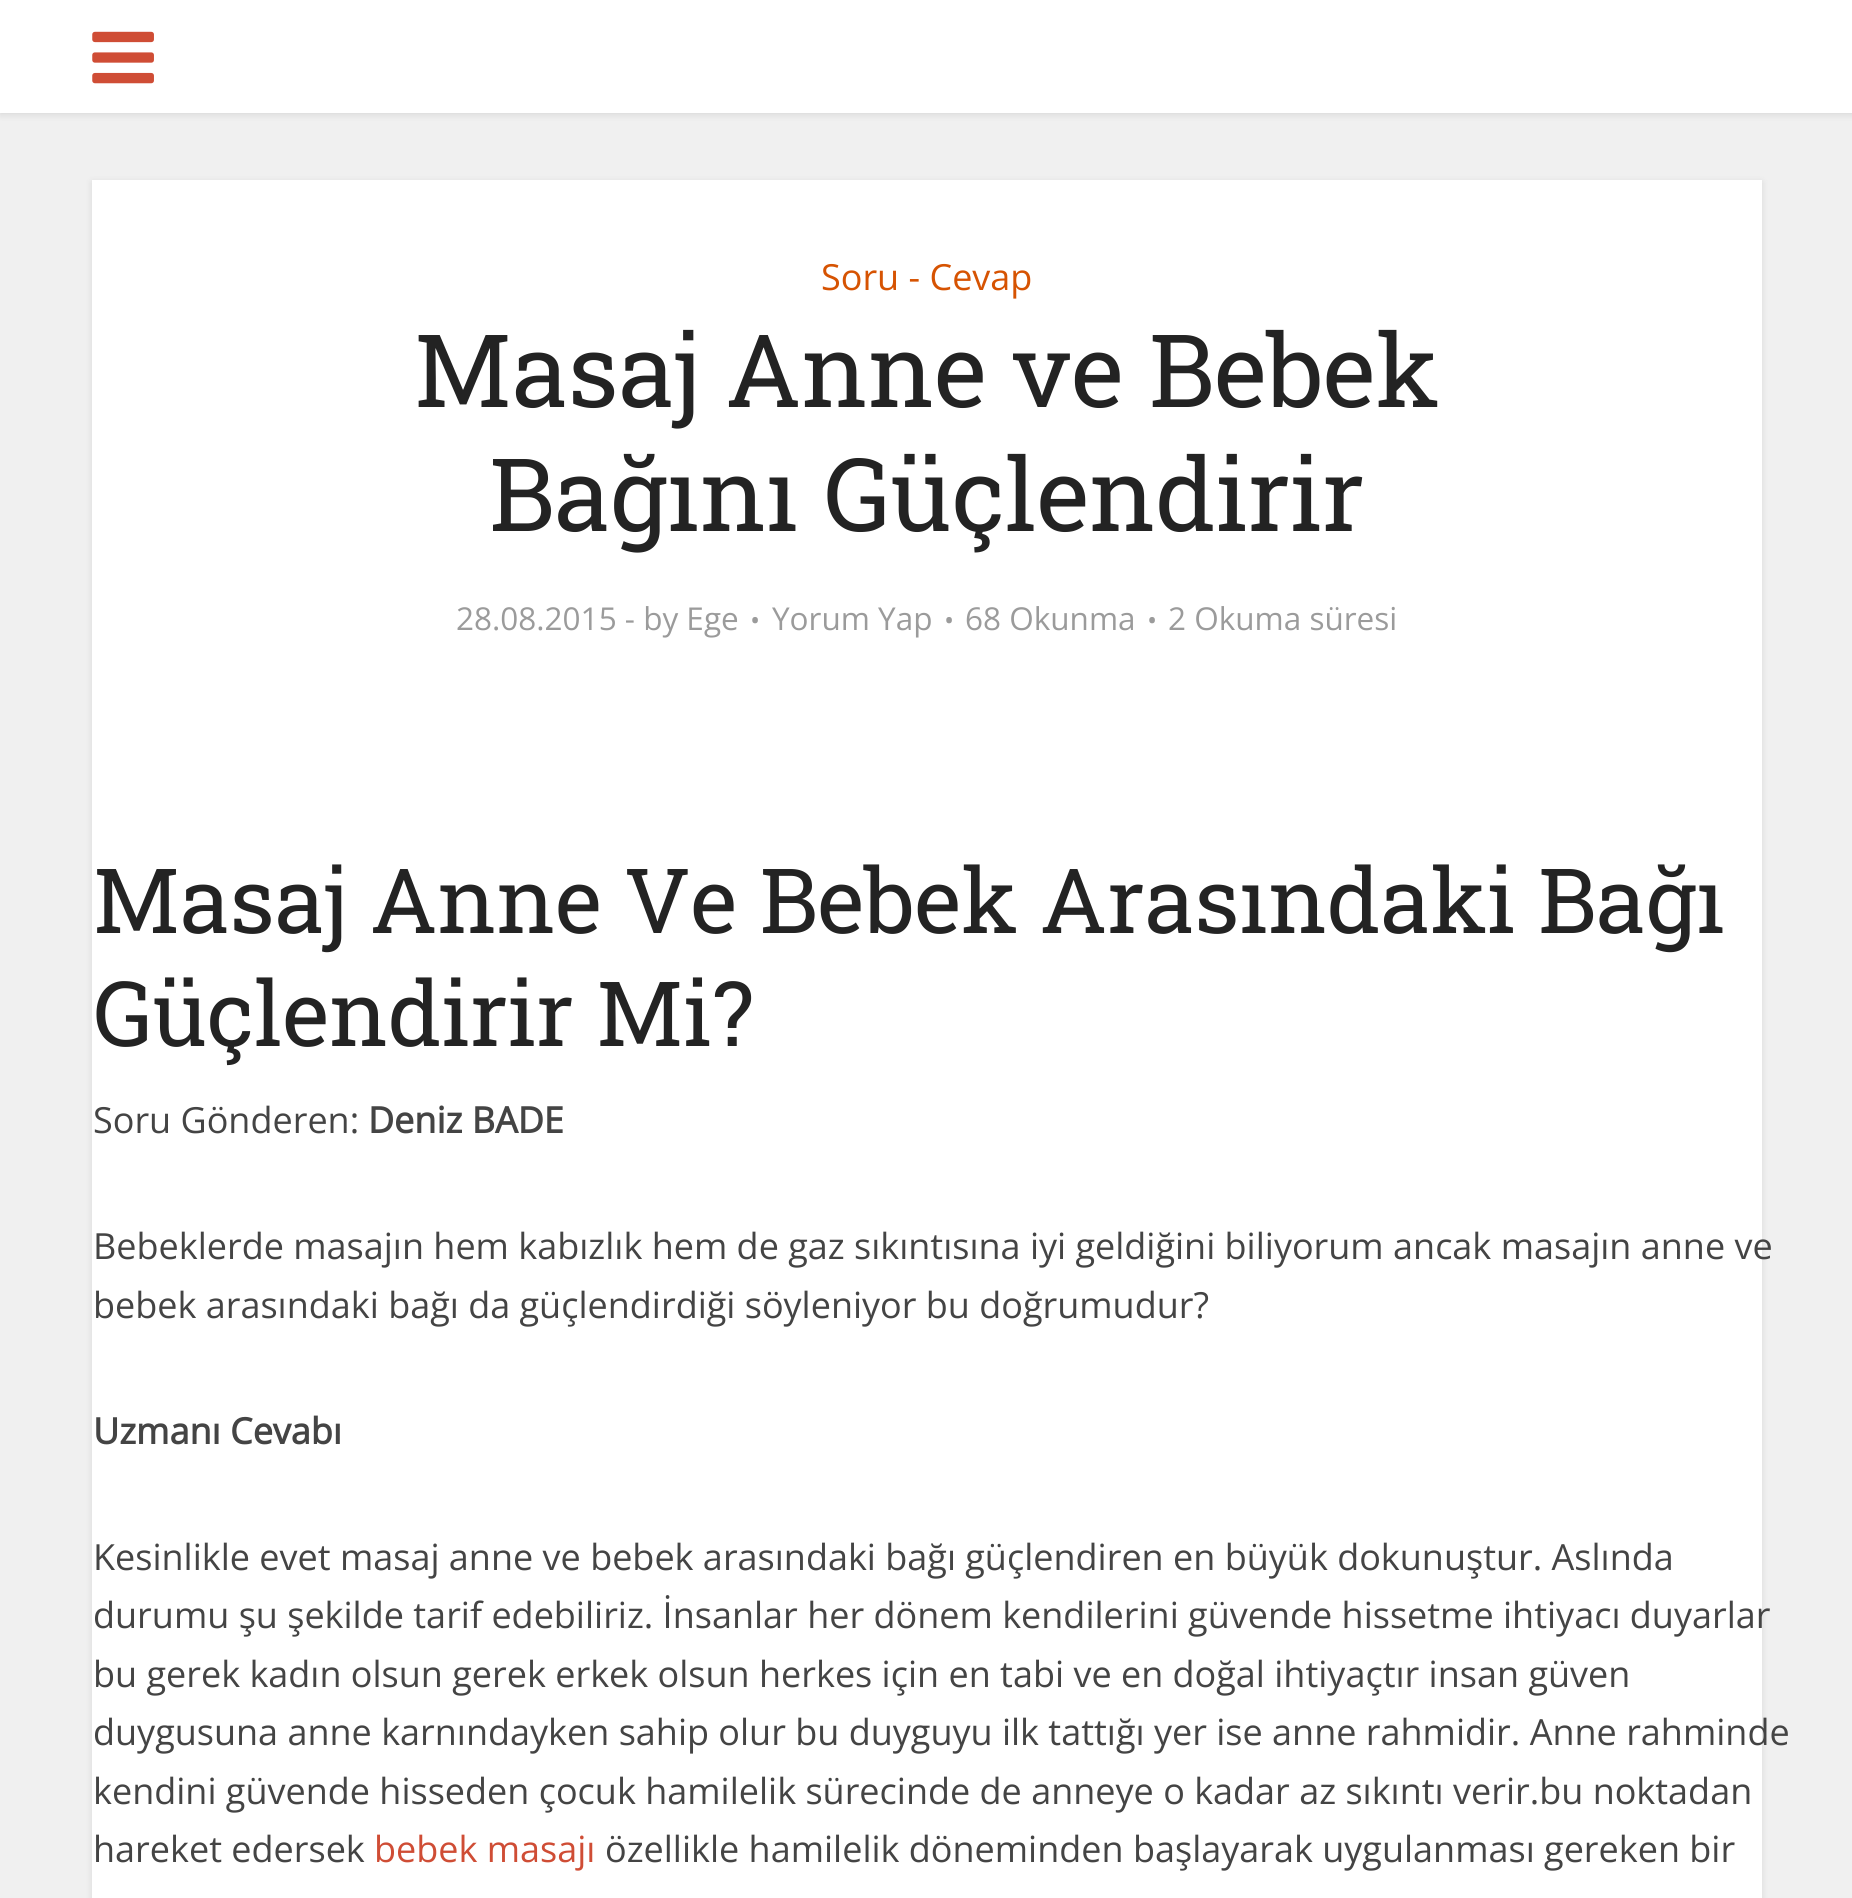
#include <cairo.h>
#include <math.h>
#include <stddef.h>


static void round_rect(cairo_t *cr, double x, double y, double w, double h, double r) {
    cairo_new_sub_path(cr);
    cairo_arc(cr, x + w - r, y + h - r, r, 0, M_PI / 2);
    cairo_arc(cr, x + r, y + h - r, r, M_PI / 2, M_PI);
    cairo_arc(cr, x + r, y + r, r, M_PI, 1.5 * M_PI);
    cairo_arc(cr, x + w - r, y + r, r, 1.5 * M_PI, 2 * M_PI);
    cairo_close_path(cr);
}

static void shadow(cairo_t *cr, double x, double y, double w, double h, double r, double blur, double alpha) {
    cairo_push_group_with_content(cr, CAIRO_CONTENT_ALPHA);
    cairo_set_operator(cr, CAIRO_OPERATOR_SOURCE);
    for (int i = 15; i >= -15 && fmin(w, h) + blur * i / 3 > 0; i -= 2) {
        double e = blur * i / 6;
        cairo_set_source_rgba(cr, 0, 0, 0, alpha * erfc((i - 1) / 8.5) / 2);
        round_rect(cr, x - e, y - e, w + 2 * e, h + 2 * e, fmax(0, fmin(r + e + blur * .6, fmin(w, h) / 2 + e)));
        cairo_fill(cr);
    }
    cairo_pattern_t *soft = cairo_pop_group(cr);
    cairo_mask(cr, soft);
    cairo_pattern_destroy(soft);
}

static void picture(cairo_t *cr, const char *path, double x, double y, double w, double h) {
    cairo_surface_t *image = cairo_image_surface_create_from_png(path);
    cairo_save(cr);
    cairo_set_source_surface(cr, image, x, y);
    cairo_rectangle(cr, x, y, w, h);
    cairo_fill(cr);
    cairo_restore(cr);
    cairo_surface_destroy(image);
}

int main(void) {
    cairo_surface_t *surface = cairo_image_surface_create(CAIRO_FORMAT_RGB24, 1852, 1898);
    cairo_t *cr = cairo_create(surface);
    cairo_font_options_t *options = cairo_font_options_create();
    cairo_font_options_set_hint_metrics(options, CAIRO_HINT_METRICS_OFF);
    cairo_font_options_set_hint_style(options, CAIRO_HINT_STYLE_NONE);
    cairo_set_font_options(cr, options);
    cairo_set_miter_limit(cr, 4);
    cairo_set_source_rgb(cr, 0.941, 0.941, 0.941);
    cairo_paint(cr);
    cairo_set_source_rgb(cr, 0, 0, 0);
    shadow(cr, 0, 2, 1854, 113, 0, 3.5, 0.1);
    cairo_set_source_rgb(cr, 1, 1, 1);
    cairo_rectangle(cr, 0, 0, 1852, 113);
    cairo_fill(cr);
    picture(cr, "img1.png", 92, 31, 62, 53);
    cairo_set_source_rgb(cr, 0, 0, 0);
    shadow(cr, 92, 182, 1670, 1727, 0, 3.5, 0.1);
    cairo_set_source_rgb(cr, 1, 1, 1);
    cairo_rectangle(cr, 92, 180, 1670, 1718);
    cairo_fill(cr);
    cairo_select_font_face(cr, "Open Sans", CAIRO_FONT_SLANT_NORMAL, CAIRO_FONT_WEIGHT_NORMAL);
    cairo_set_font_size(cr, 36);
    cairo_set_source_rgb(cr, 0.839, 0.325, 0.008);
    cairo_move_to(cr, 821, 290);
    cairo_show_text(cr, "Soru - Cevap");
    cairo_select_font_face(cr, "Roboto Slab", CAIRO_FONT_SLANT_NORMAL, CAIRO_FONT_WEIGHT_NORMAL);
    cairo_set_font_size(cr, 101.25);
    cairo_set_source_rgb(cr, 0.137, 0.137, 0.137);
    cairo_move_to(cr, 414, 407);
    cairo_show_text(cr, "Masaj Anne ve Bebek");
    cairo_move_to(cr, 489, 531);
    cairo_show_text(cr, "Bağını Güçlendirir");
    cairo_select_font_face(cr, "Open Sans", CAIRO_FONT_SLANT_NORMAL, CAIRO_FONT_WEIGHT_NORMAL);
    cairo_set_font_size(cr, 31.5);
    cairo_set_source_rgb(cr, 0.608, 0.608, 0.608);
    cairo_move_to(cr, 456, 630);
    cairo_show_text(cr, "28.08.2015 - by Ege");
    cairo_set_font_size(cr, 27);
    cairo_move_to(cr, 750, 630);
    cairo_show_text(cr, "•");
    cairo_set_font_size(cr, 31.5);
    cairo_move_to(cr, 772, 630);
    cairo_show_text(cr, "Yorum Yap");
    cairo_set_font_size(cr, 27);
    cairo_move_to(cr, 944, 630);
    cairo_show_text(cr, "•");
    cairo_set_font_size(cr, 31.5);
    cairo_move_to(cr, 965, 630);
    cairo_show_text(cr, "68 Okunma");
    cairo_set_font_size(cr, 27);
    cairo_move_to(cr, 1147, 630);
    cairo_show_text(cr, "•");
    cairo_set_font_size(cr, 31.5);
    cairo_move_to(cr, 1168, 630);
    cairo_show_text(cr, "2 Okuma süresi");
    cairo_select_font_face(cr, "Roboto Slab", CAIRO_FONT_SLANT_NORMAL, CAIRO_FONT_WEIGHT_NORMAL);
    cairo_set_font_size(cr, 90);
    cairo_set_source_rgb(cr, 0.137, 0.137, 0.137);
    cairo_move_to(cr, 93, 933);
    cairo_show_text(cr, "Masaj Anne Ve Bebek Arasındaki Bağı");
    cairo_move_to(cr, 93, 1046);
    cairo_show_text(cr, "Güçlendirir Mi?");
    cairo_select_font_face(cr, "Open Sans", CAIRO_FONT_SLANT_NORMAL, CAIRO_FONT_WEIGHT_NORMAL);
    cairo_set_font_size(cr, 36);
    cairo_set_source_rgb(cr, 0.267, 0.267, 0.267);
    cairo_move_to(cr, 93, 1133);
    cairo_show_text(cr, "Soru Gönderen:");
    cairo_select_font_face(cr, "Open Sans", CAIRO_FONT_SLANT_NORMAL, CAIRO_FONT_WEIGHT_BOLD);
    cairo_move_to(cr, 368, 1133);
    cairo_show_text(cr, "Deniz BADE");
    cairo_select_font_face(cr, "Open Sans", CAIRO_FONT_SLANT_NORMAL, CAIRO_FONT_WEIGHT_NORMAL);
    cairo_move_to(cr, 93, 1259);
    cairo_show_text(cr, "Bebeklerde masajın hem kabızlık hem de gaz sıkıntısına iyi geldiğini biliyorum ancak masajın anne ve");
    cairo_move_to(cr, 93, 1318);
    cairo_show_text(cr, "bebek arasındaki bağı da güçlendirdiği söyleniyor bu doğrumudur?");
    cairo_select_font_face(cr, "Open Sans", CAIRO_FONT_SLANT_NORMAL, CAIRO_FONT_WEIGHT_BOLD);
    cairo_move_to(cr, 93, 1444);
    cairo_show_text(cr, "Uzmanı Cevabı");
    cairo_select_font_face(cr, "Open Sans", CAIRO_FONT_SLANT_NORMAL, CAIRO_FONT_WEIGHT_NORMAL);
    cairo_move_to(cr, 93, 1570);
    cairo_show_text(cr, "Kesinlikle evet masaj anne ve bebek arasındaki bağı güçlendiren en büyük dokunuştur. Aslında");
    cairo_move_to(cr, 93, 1628);
    cairo_show_text(cr, "durumu şu şekilde tarif edebiliriz. İnsanlar her dönem kendilerini güvende hissetme ihtiyacı duyarlar");
    cairo_move_to(cr, 93, 1687);
    cairo_show_text(cr, "bu gerek kadın olsun gerek erkek olsun herkes için en tabi ve en doğal ihtiyaçtır insan güven");
    cairo_move_to(cr, 93, 1745);
    cairo_show_text(cr, "duygusuna anne karnındayken sahip olur bu duyguyu ilk tattığı yer ise anne rahmidir. Anne rahminde");
    cairo_move_to(cr, 93, 1804);
    cairo_show_text(cr, "kendini güvende hisseden çocuk hamilelik sürecinde de anneye o kadar az sıkıntı verir.bu noktadan");
    cairo_move_to(cr, 93, 1862);
    cairo_show_text(cr, "hareket edersek");
    cairo_set_source_rgb(cr, 0.812, 0.302, 0.208);
    cairo_move_to(cr, 374, 1862);
    cairo_show_text(cr, "bebek masajı");
    cairo_set_source_rgb(cr, 0.267, 0.267, 0.267);
    cairo_move_to(cr, 605, 1862);
    cairo_show_text(cr, "özellikle hamilelik döneminden başlayarak uygulanması gereken bir");
    cairo_surface_write_to_png(surface, "page.png");
    cairo_font_options_destroy(options);
    cairo_destroy(cr);
    cairo_surface_destroy(surface);
    return 0;
}
